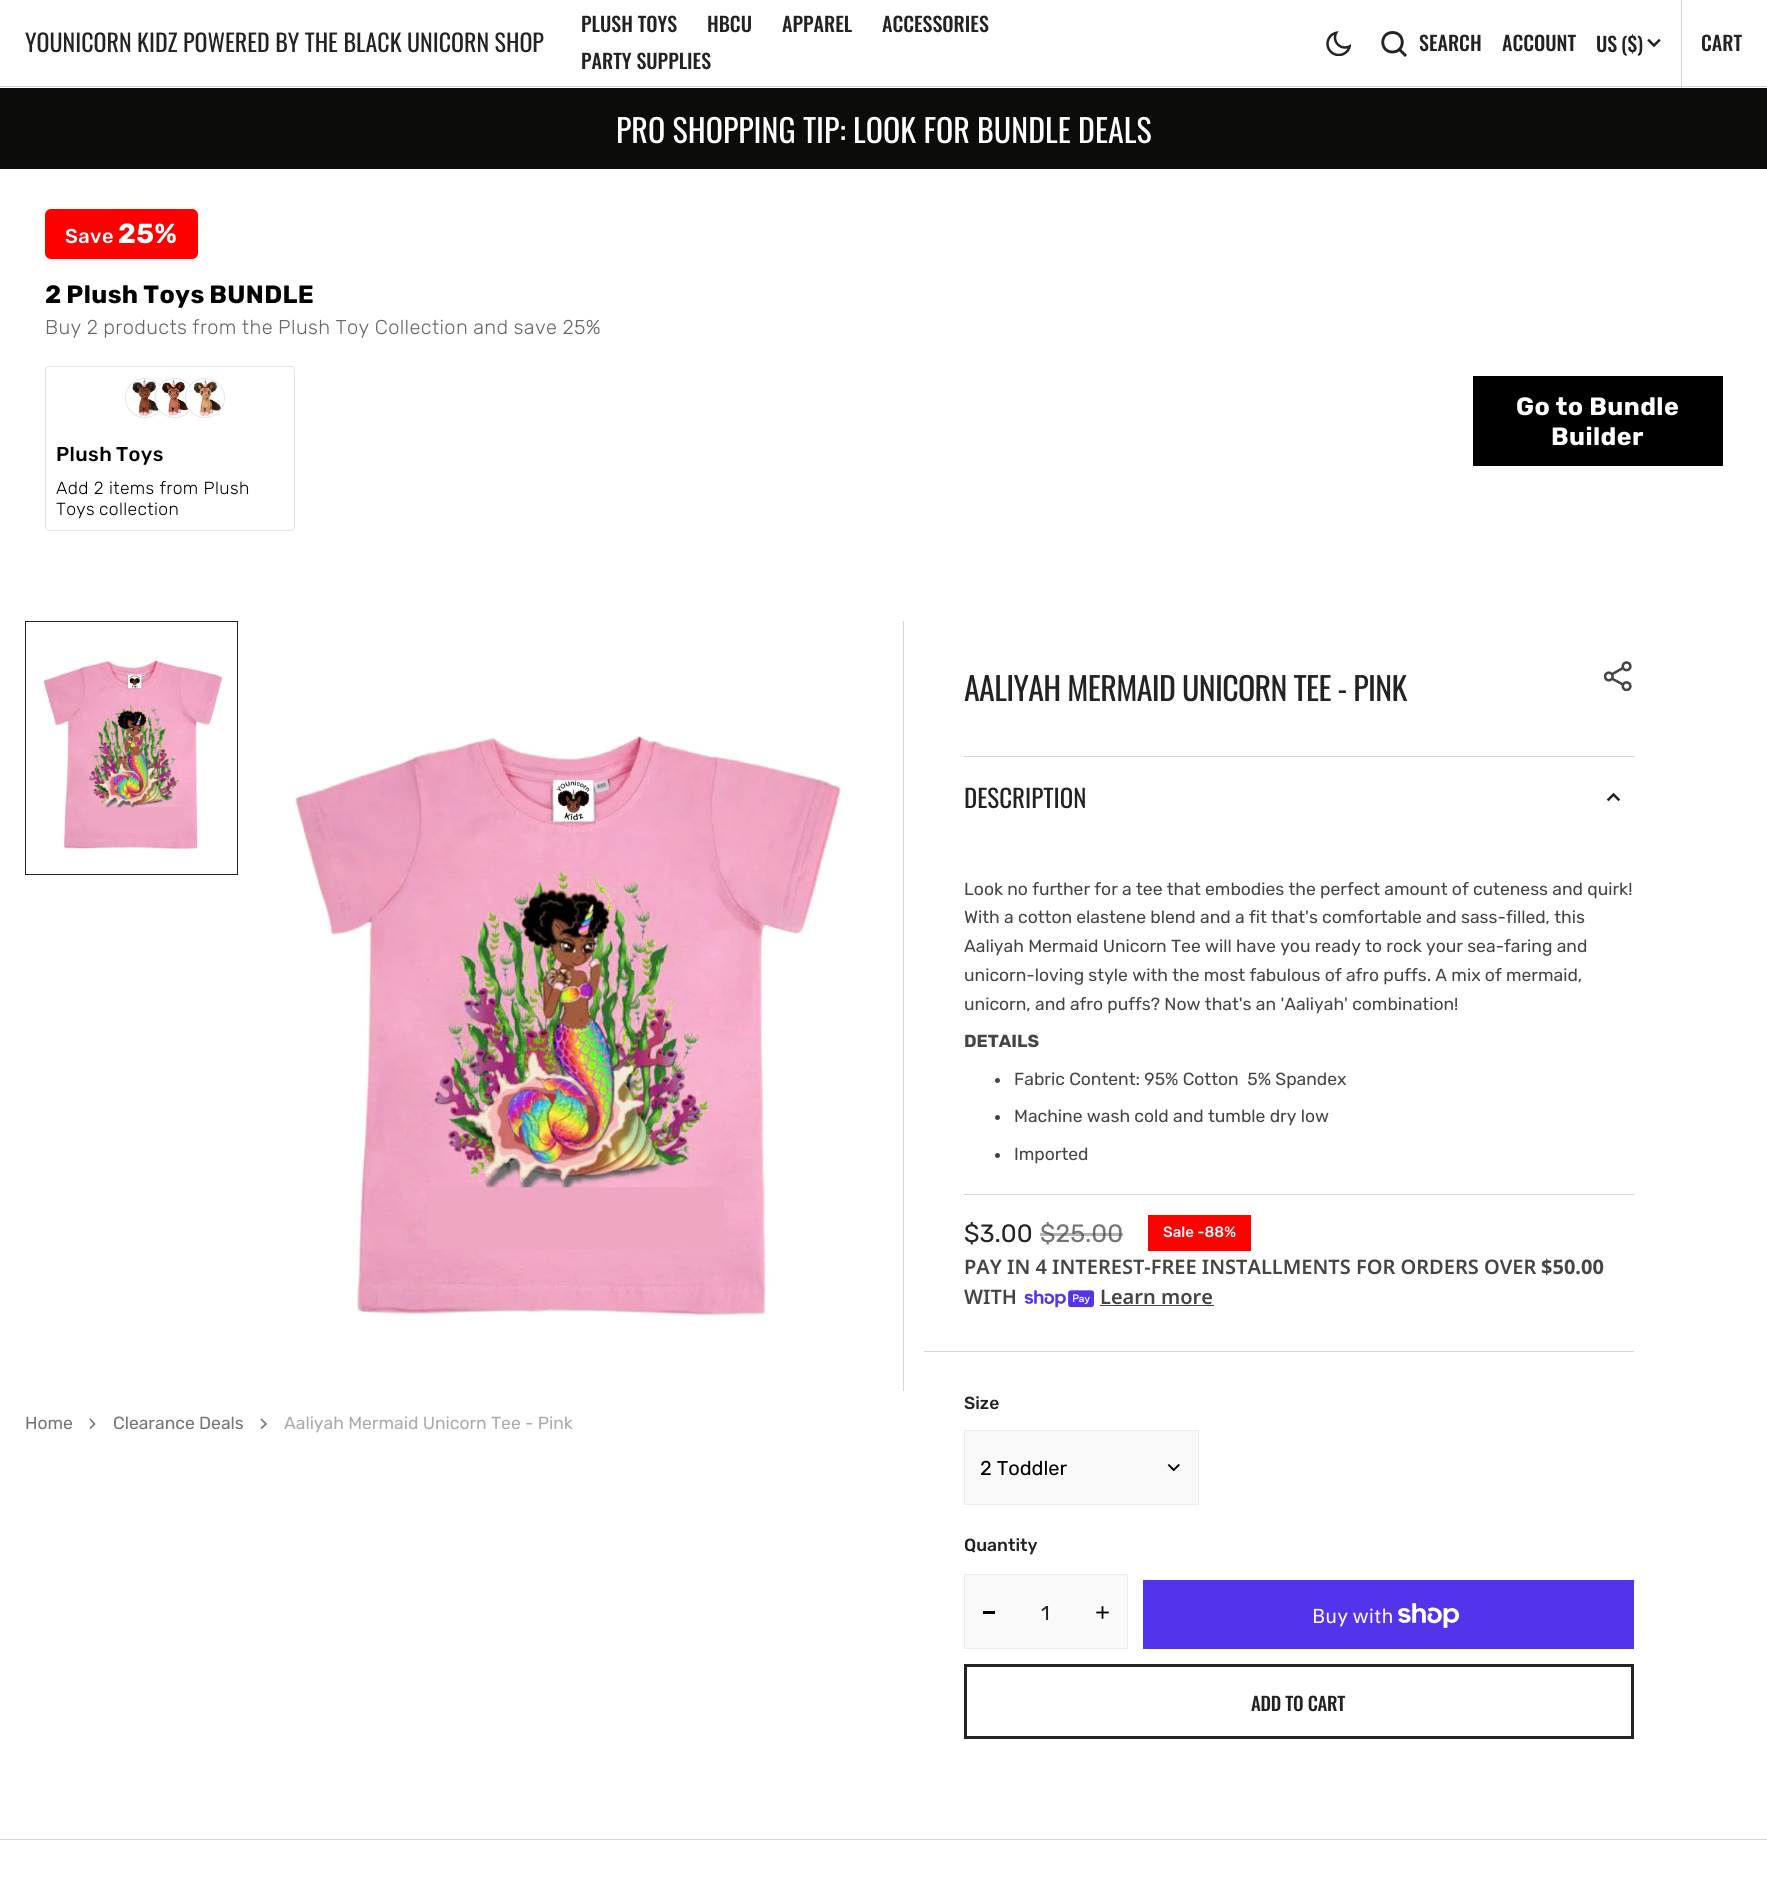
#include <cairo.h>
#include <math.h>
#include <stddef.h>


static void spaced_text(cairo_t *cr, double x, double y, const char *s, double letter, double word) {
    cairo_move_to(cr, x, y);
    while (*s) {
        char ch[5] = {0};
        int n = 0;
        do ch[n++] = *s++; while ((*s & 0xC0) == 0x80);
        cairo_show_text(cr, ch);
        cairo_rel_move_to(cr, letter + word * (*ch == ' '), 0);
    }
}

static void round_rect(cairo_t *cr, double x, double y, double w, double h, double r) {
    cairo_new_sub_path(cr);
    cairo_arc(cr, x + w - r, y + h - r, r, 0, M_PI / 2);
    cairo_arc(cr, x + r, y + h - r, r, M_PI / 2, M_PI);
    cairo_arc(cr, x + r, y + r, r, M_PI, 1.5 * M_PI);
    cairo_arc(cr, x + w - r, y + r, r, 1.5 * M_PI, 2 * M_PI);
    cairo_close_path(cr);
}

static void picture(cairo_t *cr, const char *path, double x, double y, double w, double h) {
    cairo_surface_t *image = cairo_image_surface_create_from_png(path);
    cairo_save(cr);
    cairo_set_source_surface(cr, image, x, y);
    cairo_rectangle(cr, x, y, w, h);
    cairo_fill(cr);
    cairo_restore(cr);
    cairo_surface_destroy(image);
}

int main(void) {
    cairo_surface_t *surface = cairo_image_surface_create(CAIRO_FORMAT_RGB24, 1767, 1884);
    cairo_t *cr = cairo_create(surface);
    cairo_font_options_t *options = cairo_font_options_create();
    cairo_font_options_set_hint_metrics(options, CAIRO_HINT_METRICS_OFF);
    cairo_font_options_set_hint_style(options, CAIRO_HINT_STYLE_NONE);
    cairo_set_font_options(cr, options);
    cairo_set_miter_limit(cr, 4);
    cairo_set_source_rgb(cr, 1, 1, 1);
    cairo_paint(cr);
    cairo_set_source_rgb(cr, 0.835, 0.835, 0.835);
    cairo_rectangle(cr, 0, 86, 1767, 1);
    cairo_fill(cr);
    cairo_select_font_face(cr, "Oswald", CAIRO_FONT_SLANT_NORMAL, CAIRO_FONT_WEIGHT_NORMAL);
    cairo_set_font_size(cr, 24);
    cairo_set_source_rgb(cr, 0.137, 0.137, 0.133);
    cairo_move_to(cr, 25, 52);
    cairo_show_text(cr, "YOUNICORN KIDZ POWERED BY THE BLACK UNICORN SHOP");
    cairo_select_font_face(cr, "Oswald Medium", CAIRO_FONT_SLANT_NORMAL, CAIRO_FONT_WEIGHT_NORMAL);
    cairo_set_font_size(cr, 20);
    cairo_move_to(cr, 581, 32);
    cairo_show_text(cr, "PLUSH TOYS");
    cairo_move_to(cr, 707, 32);
    cairo_show_text(cr, "HBCU");
    cairo_move_to(cr, 782, 32);
    cairo_show_text(cr, "APPAREL");
    cairo_move_to(cr, 882, 32);
    cairo_show_text(cr, "ACCESSORIES");
    cairo_move_to(cr, 581, 69);
    cairo_show_text(cr, "PARTY SUPPLIES");
    picture(cr, "img1.png", 1326, 31, 25, 25);
    cairo_new_path(cr);
    cairo_move_to(cr, 1392.5, 52);
    cairo_curve_to(cr, 1405.5, 52, 1405.5, 32.5, 1392.5, 32.5);
    cairo_curve_to(cr, 1379.5, 32.5, 1379.5, 52, 1392.5, 52);
    cairo_close_path(cr);
    cairo_set_line_width(cr, 2.9);
    cairo_set_line_cap(cr, CAIRO_LINE_CAP_ROUND);
    cairo_set_line_join(cr, CAIRO_LINE_JOIN_ROUND);
    cairo_stroke(cr);
    cairo_new_path(cr);
    cairo_move_to(cr, 1399.5, 49.5);
    cairo_line_to(cr, 1405, 55);
    cairo_set_line_cap(cr, CAIRO_LINE_CAP_SQUARE);
    cairo_stroke(cr);
    cairo_move_to(cr, 1419, 51);
    cairo_show_text(cr, "SEARCH");
    cairo_move_to(cr, 1502, 51);
    cairo_show_text(cr, "ACCOUNT");
    cairo_move_to(cr, 1596, 52);
    cairo_show_text(cr, "US");
    cairo_move_to(cr, 1621, 52);
    cairo_show_text(cr, "($)");
    cairo_new_path(cr);
    cairo_move_to(cr, 1659, 40.5);
    cairo_line_to(cr, 1654, 45.5);
    cairo_line_to(cr, 1649, 40.5);
    cairo_set_line_width(cr, 2.5);
    cairo_set_line_join(cr, CAIRO_LINE_JOIN_MITER);
    cairo_stroke(cr);
    cairo_set_source_rgb(cr, 0.835, 0.835, 0.835);
    cairo_rectangle(cr, 1681, 0, 1, 88);
    cairo_fill(cr);
    cairo_set_source_rgb(cr, 0.137, 0.137, 0.133);
    cairo_move_to(cr, 1701, 51);
    cairo_show_text(cr, "CART");
    cairo_set_source_rgb(cr, 0.047, 0.047, 0.043);
    cairo_rectangle(cr, 0, 88, 1767, 81);
    cairo_fill(cr);
    cairo_select_font_face(cr, "Oswald", CAIRO_FONT_SLANT_NORMAL, CAIRO_FONT_WEIGHT_NORMAL);
    cairo_set_font_size(cr, 32);
    cairo_set_source_rgb(cr, 1, 1, 1);
    cairo_move_to(cr, 616, 143);
    cairo_show_text(cr, "PRO SHOPPING TIP: LOOK FOR BUNDLE DEALS");
    cairo_set_source_rgb(cr, 1, 0, 0);
    round_rect(cr, 45, 209, 153, 50, 6);
    cairo_fill(cr);
    cairo_select_font_face(cr, "Rubik Medium", CAIRO_FONT_SLANT_NORMAL, CAIRO_FONT_WEIGHT_NORMAL);
    cairo_set_font_size(cr, 20);
    cairo_set_source_rgb(cr, 1, 1, 1);
    spaced_text(cr, 65, 243, "Save", 0.4, 0);
    cairo_select_font_face(cr, "Rubik", CAIRO_FONT_SLANT_NORMAL, CAIRO_FONT_WEIGHT_BOLD);
    cairo_set_font_size(cr, 27.5);
    spaced_text(cr, 118, 243, "25%", 0.4, 0);
    cairo_set_font_size(cr, 25);
    cairo_set_source_rgb(cr, 0, 0, 0);
    spaced_text(cr, 45, 303, "2 Plush Toys BUNDLE", 0.4, -1);
    cairo_select_font_face(cr, "Rubik Light", CAIRO_FONT_SLANT_NORMAL, CAIRO_FONT_WEIGHT_NORMAL);
    cairo_set_font_size(cr, 20);
    cairo_set_source_rgb(cr, 0.4, 0.4, 0.4);
    spaced_text(cr, 45, 334, "Buy 2 products from the Plush Toy Collection and save 25%", 0.4, -0.5);
    cairo_set_source_rgb(cr, 0, 0, 0);
    cairo_rectangle(cr, 1473, 376, 250, 90);
    cairo_fill(cr);
    cairo_select_font_face(cr, "Rubik", CAIRO_FONT_SLANT_NORMAL, CAIRO_FONT_WEIGHT_BOLD);
    cairo_set_font_size(cr, 25);
    cairo_set_source_rgb(cr, 1, 1, 1);
    spaced_text(cr, 1516, 415, "Go to Bundle", 0.4, 0);
    spaced_text(cr, 1551, 445, "Builder", 0.4, 0);
    round_rect(cr, 45.5, 366.5, 249, 164, 3.5);
    cairo_set_source_rgb(cr, 0.898, 0.898, 0.898);
    cairo_set_line_width(cr, 1);
    cairo_set_line_cap(cr, CAIRO_LINE_CAP_BUTT);
    cairo_stroke(cr);
    picture(cr, "img2.png", 132, 378, 29, 39);
    cairo_arc(cr, 145, 398, 19.5, 0, 2 * M_PI);
    cairo_stroke(cr);
    cairo_set_source_rgb(cr, 1, 1, 1);
    cairo_arc(cr, 175, 398, 20, 0, 2 * M_PI);
    cairo_fill(cr);
    picture(cr, "img3.png", 156, 379, 33, 37);
    cairo_arc(cr, 175, 398, 19.5, 0, 2 * M_PI);
    cairo_set_source_rgb(cr, 0.898, 0.898, 0.898);
    cairo_stroke(cr);
    cairo_set_source_rgb(cr, 1, 1, 1);
    cairo_arc(cr, 205, 398, 20, 0, 2 * M_PI);
    cairo_fill(cr);
    picture(cr, "img4.png", 186, 379, 36, 38);
    cairo_arc(cr, 205, 398, 19.5, 0, 2 * M_PI);
    cairo_set_source_rgb(cr, 0.898, 0.898, 0.898);
    cairo_stroke(cr);
    cairo_select_font_face(cr, "Rubik Medium", CAIRO_FONT_SLANT_NORMAL, CAIRO_FONT_WEIGHT_NORMAL);
    cairo_set_font_size(cr, 20);
    cairo_set_source_rgb(cr, 0, 0, 0);
    spaced_text(cr, 56, 461, "Plush Toys", 0.4, -1);
    cairo_select_font_face(cr, "Rubik Light", CAIRO_FONT_SLANT_NORMAL, CAIRO_FONT_WEIGHT_NORMAL);
    cairo_set_font_size(cr, 17.5);
    spaced_text(cr, 56, 494, "Add 2 items from Plush", 0.4, 0);
    spaced_text(cr, 56, 515, "Toys collection", 0.4, -1);
    cairo_rectangle(cr, 25.5, 621.5, 212, 253);
    cairo_set_source_rgb(cr, 0.137, 0.137, 0.133);
    cairo_stroke(cr);
    picture(cr, "img5.png", 43, 660, 180, 189);
    picture(cr, "img6.png", 295, 736, 546, 581);
    cairo_set_source_rgb(cr, 0.835, 0.835, 0.835);
    cairo_rectangle(cr, 903, 621, 1, 770);
    cairo_fill(cr);
    cairo_select_font_face(cr, "Rubik", CAIRO_FONT_SLANT_NORMAL, CAIRO_FONT_WEIGHT_NORMAL);
    cairo_set_source_rgb(cr, 0.455, 0.455, 0.451);
    cairo_move_to(cr, 25, 1429);
    cairo_show_text(cr, "Home");
    cairo_new_path(cr);
    cairo_move_to(cr, 90.5, 1419.5);
    cairo_line_to(cr, 94.5, 1424);
    cairo_line_to(cr, 90.5, 1428);
    cairo_set_source_rgb(cr, 0.451, 0.451, 0.447);
    cairo_set_line_width(cr, 1.6);
    cairo_set_line_cap(cr, CAIRO_LINE_CAP_SQUARE);
    cairo_stroke(cr);
    cairo_set_source_rgb(cr, 0.455, 0.455, 0.451);
    cairo_move_to(cr, 113, 1429);
    cairo_show_text(cr, "Clearance Deals");
    cairo_new_path(cr);
    cairo_move_to(cr, 261.5, 1419.5);
    cairo_line_to(cr, 266, 1424);
    cairo_line_to(cr, 261.5, 1428);
    cairo_set_source_rgb(cr, 0.451, 0.451, 0.447);
    cairo_stroke(cr);
    cairo_set_source_rgb(cr, 0.671, 0.671, 0.667);
    cairo_move_to(cr, 284, 1429);
    cairo_show_text(cr, "Aaliyah Mermaid Unicorn Tee - Pink");
    cairo_select_font_face(cr, "Oswald", CAIRO_FONT_SLANT_NORMAL, CAIRO_FONT_WEIGHT_NORMAL);
    cairo_set_font_size(cr, 32);
    cairo_set_source_rgb(cr, 0.137, 0.137, 0.133);
    spaced_text(cr, 964, 701, "AALIYAH MERMAID UNICORN TEE - PINK", -0.65, 0);
    picture(cr, "img7.png", 1604, 661, 28, 30);
    cairo_set_source_rgb(cr, 0.835, 0.835, 0.835);
    cairo_rectangle(cr, 964, 756, 670, 1);
    cairo_fill(cr);
    cairo_rectangle(cr, 964, 1194, 670, 1);
    cairo_fill(cr);
    cairo_set_font_size(cr, 25);
    cairo_set_source_rgb(cr, 0.137, 0.137, 0.133);
    cairo_move_to(cr, 964, 808);
    cairo_show_text(cr, "DESCRIPTION");
    cairo_new_path(cr);
    cairo_move_to(cr, 1608.5, 799.5);
    cairo_line_to(cr, 1613.5, 794.5);
    cairo_line_to(cr, 1618.5, 799.5);
    cairo_set_line_width(cr, 2.5);
    cairo_stroke(cr);
    cairo_select_font_face(cr, "Rubik", CAIRO_FONT_SLANT_NORMAL, CAIRO_FONT_WEIGHT_NORMAL);
    cairo_set_font_size(cr, 17.5);
    cairo_set_source_rgb(cr, 0.271, 0.271, 0.267);
    cairo_move_to(cr, 964, 895);
    cairo_show_text(cr, "Look no further for a tee that embodies the perfect amount of cuteness and quirk!");
    cairo_move_to(cr, 964, 923);
    cairo_show_text(cr, "With a cotton elastene blend and a fit that's comfortable and sass-filled, this");
    cairo_move_to(cr, 964, 952);
    cairo_show_text(cr, "Aaliyah Mermaid Unicorn Tee will have you ready to rock your sea-faring and");
    cairo_move_to(cr, 964, 981);
    cairo_show_text(cr, "unicorn-loving style with the most fabulous of afro puffs. A mix of mermaid,");
    cairo_move_to(cr, 964, 1010);
    cairo_show_text(cr, "unicorn, and afro puffs? Now that's an 'Aaliyah' combination!");
    cairo_select_font_face(cr, "Rubik", CAIRO_FONT_SLANT_NORMAL, CAIRO_FONT_WEIGHT_BOLD);
    cairo_move_to(cr, 964, 1047);
    cairo_show_text(cr, "DETAILS");
    cairo_new_path(cr);
    cairo_arc(cr, 997.5, 1080.5, 2.5, 0, 2 * M_PI);
    cairo_fill(cr);
    cairo_select_font_face(cr, "Rubik", CAIRO_FONT_SLANT_NORMAL, CAIRO_FONT_WEIGHT_NORMAL);
    cairo_move_to(cr, 1014, 1085);
    cairo_show_text(cr, "Fabric Content: 95% Cotton  5% Spandex");
    cairo_new_path(cr);
    cairo_arc(cr, 997.5, 1117.5, 2.5, 0, 2 * M_PI);
    cairo_fill(cr);
    cairo_move_to(cr, 1014, 1122);
    cairo_show_text(cr, "Machine wash cold and tumble dry low");
    cairo_new_path(cr);
    cairo_arc(cr, 997.5, 1155.5, 2.5, 0, 2 * M_PI);
    cairo_fill(cr);
    cairo_move_to(cr, 1014, 1160);
    cairo_show_text(cr, "Imported");
    cairo_set_font_size(cr, 25);
    cairo_set_source_rgb(cr, 0.137, 0.137, 0.133);
    cairo_move_to(cr, 964, 1242);
    cairo_show_text(cr, "$3.00");
    cairo_set_source_rgb(cr, 0.455, 0.455, 0.451);
    cairo_move_to(cr, 1040, 1242);
    cairo_show_text(cr, "$25.00");
    cairo_set_source_rgba(cr, 0.271, 0.271, 0.267, 0.4);
    cairo_rectangle(cr, 1040, 1233, 83, 3);
    cairo_fill(cr);
    cairo_set_source_rgb(cr, 1, 0.004, 0.004);
    cairo_rectangle(cr, 1148, 1215, 103, 36);
    cairo_fill(cr);
    cairo_select_font_face(cr, "Rubik Medium", CAIRO_FONT_SLANT_NORMAL, CAIRO_FONT_WEIGHT_NORMAL);
    cairo_set_font_size(cr, 15);
    cairo_set_source_rgb(cr, 1, 1, 1);
    cairo_move_to(cr, 1163, 1237);
    cairo_show_text(cr, "Sale -88%");
    cairo_select_font_face(cr, "Noto Sans SemiBold", CAIRO_FONT_SLANT_NORMAL, CAIRO_FONT_WEIGHT_NORMAL);
    cairo_set_font_size(cr, 20);
    cairo_set_source_rgb(cr, 0.271, 0.271, 0.267);
    cairo_move_to(cr, 964, 1274);
    cairo_show_text(cr, "PAY IN 4 INTEREST-FREE INSTALLMENTS FOR ORDERS OVER");
    cairo_select_font_face(cr, "Noto Sans", CAIRO_FONT_SLANT_NORMAL, CAIRO_FONT_WEIGHT_BOLD);
    cairo_move_to(cr, 1541, 1274);
    cairo_show_text(cr, "$50.00");
    cairo_select_font_face(cr, "Noto Sans SemiBold", CAIRO_FONT_SLANT_NORMAL, CAIRO_FONT_WEIGHT_NORMAL);
    cairo_move_to(cr, 964, 1304);
    cairo_show_text(cr, "WITH");
    picture(cr, "img8.png", 1024, 1290, 70, 18);
    cairo_move_to(cr, 1100, 1304);
    cairo_show_text(cr, "Learn more");
    cairo_rectangle(cr, 1100, 1305, 114, 1);
    cairo_fill(cr);
    cairo_set_source_rgb(cr, 0.835, 0.835, 0.835);
    cairo_rectangle(cr, 924, 1351, 710, 1);
    cairo_fill(cr);
    cairo_select_font_face(cr, "Rubik Medium", CAIRO_FONT_SLANT_NORMAL, CAIRO_FONT_WEIGHT_NORMAL);
    cairo_set_font_size(cr, 17.5);
    cairo_set_source_rgb(cr, 0.137, 0.137, 0.133);
    cairo_move_to(cr, 964, 1409);
    cairo_show_text(cr, "Size");
    cairo_set_source_rgb(cr, 0.973, 0.973, 0.973);
    cairo_rectangle(cr, 964.5, 1430.5, 234, 74);
    cairo_fill_preserve(cr);
    cairo_set_source_rgb(cr, 0.922, 0.922, 0.922);
    cairo_set_line_width(cr, 1);
    cairo_set_line_cap(cr, CAIRO_LINE_CAP_BUTT);
    cairo_stroke(cr);
    cairo_select_font_face(cr, "Rubik", CAIRO_FONT_SLANT_NORMAL, CAIRO_FONT_WEIGHT_NORMAL);
    cairo_set_font_size(cr, 20);
    cairo_set_source_rgb(cr, 0, 0, 0);
    cairo_move_to(cr, 980, 1475);
    cairo_show_text(cr, "2 Toddler");
    picture(cr, "img9.png", 1167, 1464, 13, 8);
    cairo_select_font_face(cr, "Rubik Medium", CAIRO_FONT_SLANT_NORMAL, CAIRO_FONT_WEIGHT_NORMAL);
    cairo_set_font_size(cr, 17.5);
    cairo_set_source_rgb(cr, 0.137, 0.137, 0.133);
    cairo_move_to(cr, 964, 1551);
    cairo_show_text(cr, "Quantity");
    cairo_set_source_rgb(cr, 0.973, 0.973, 0.973);
    cairo_rectangle(cr, 964.5, 1574.5, 163, 74);
    cairo_fill_preserve(cr);
    cairo_set_source_rgb(cr, 0.922, 0.922, 0.922);
    cairo_stroke(cr);
    cairo_set_source_rgb(cr, 0, 0, 0);
    cairo_rectangle(cr, 983, 1611, 12, 3);
    cairo_fill(cr);
    cairo_select_font_face(cr, "Rubik", CAIRO_FONT_SLANT_NORMAL, CAIRO_FONT_WEIGHT_NORMAL);
    cairo_set_font_size(cr, 20);
    cairo_set_source_rgb(cr, 0.137, 0.137, 0.133);
    cairo_move_to(cr, 1041, 1620);
    cairo_show_text(cr, "1");
    picture(cr, "img10.png", 1096, 1606, 13, 13);
    cairo_set_source_rgb(cr, 0.329, 0.2, 0.922);
    cairo_rectangle(cr, 1143, 1580, 491, 69);
    cairo_fill(cr);
    cairo_select_font_face(cr, "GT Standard", CAIRO_FONT_SLANT_NORMAL, CAIRO_FONT_WEIGHT_NORMAL);
    cairo_set_source_rgb(cr, 1, 1, 1);
    cairo_move_to(cr, 1312, 1623);
    cairo_show_text(cr, "Buy with");
    picture(cr, "img11.png", 1398, 1603, 62, 25);
    cairo_rectangle(cr, 965.5, 1665.5, 667, 72);
    cairo_set_source_rgb(cr, 0.137, 0.137, 0.133);
    cairo_set_line_width(cr, 3);
    cairo_stroke(cr);
    cairo_select_font_face(cr, "Oswald Medium", CAIRO_FONT_SLANT_NORMAL, CAIRO_FONT_WEIGHT_NORMAL);
    cairo_set_font_size(cr, 18.75);
    spaced_text(cr, 1251, 1711, "ADD TO CART", -0.25, 0);
    cairo_set_source_rgb(cr, 0.835, 0.835, 0.835);
    cairo_rectangle(cr, 0, 1839, 1767, 1);
    cairo_fill(cr);
    cairo_surface_write_to_png(surface, "page.png");
    cairo_font_options_destroy(options);
    cairo_destroy(cr);
    cairo_surface_destroy(surface);
    return 0;
}
